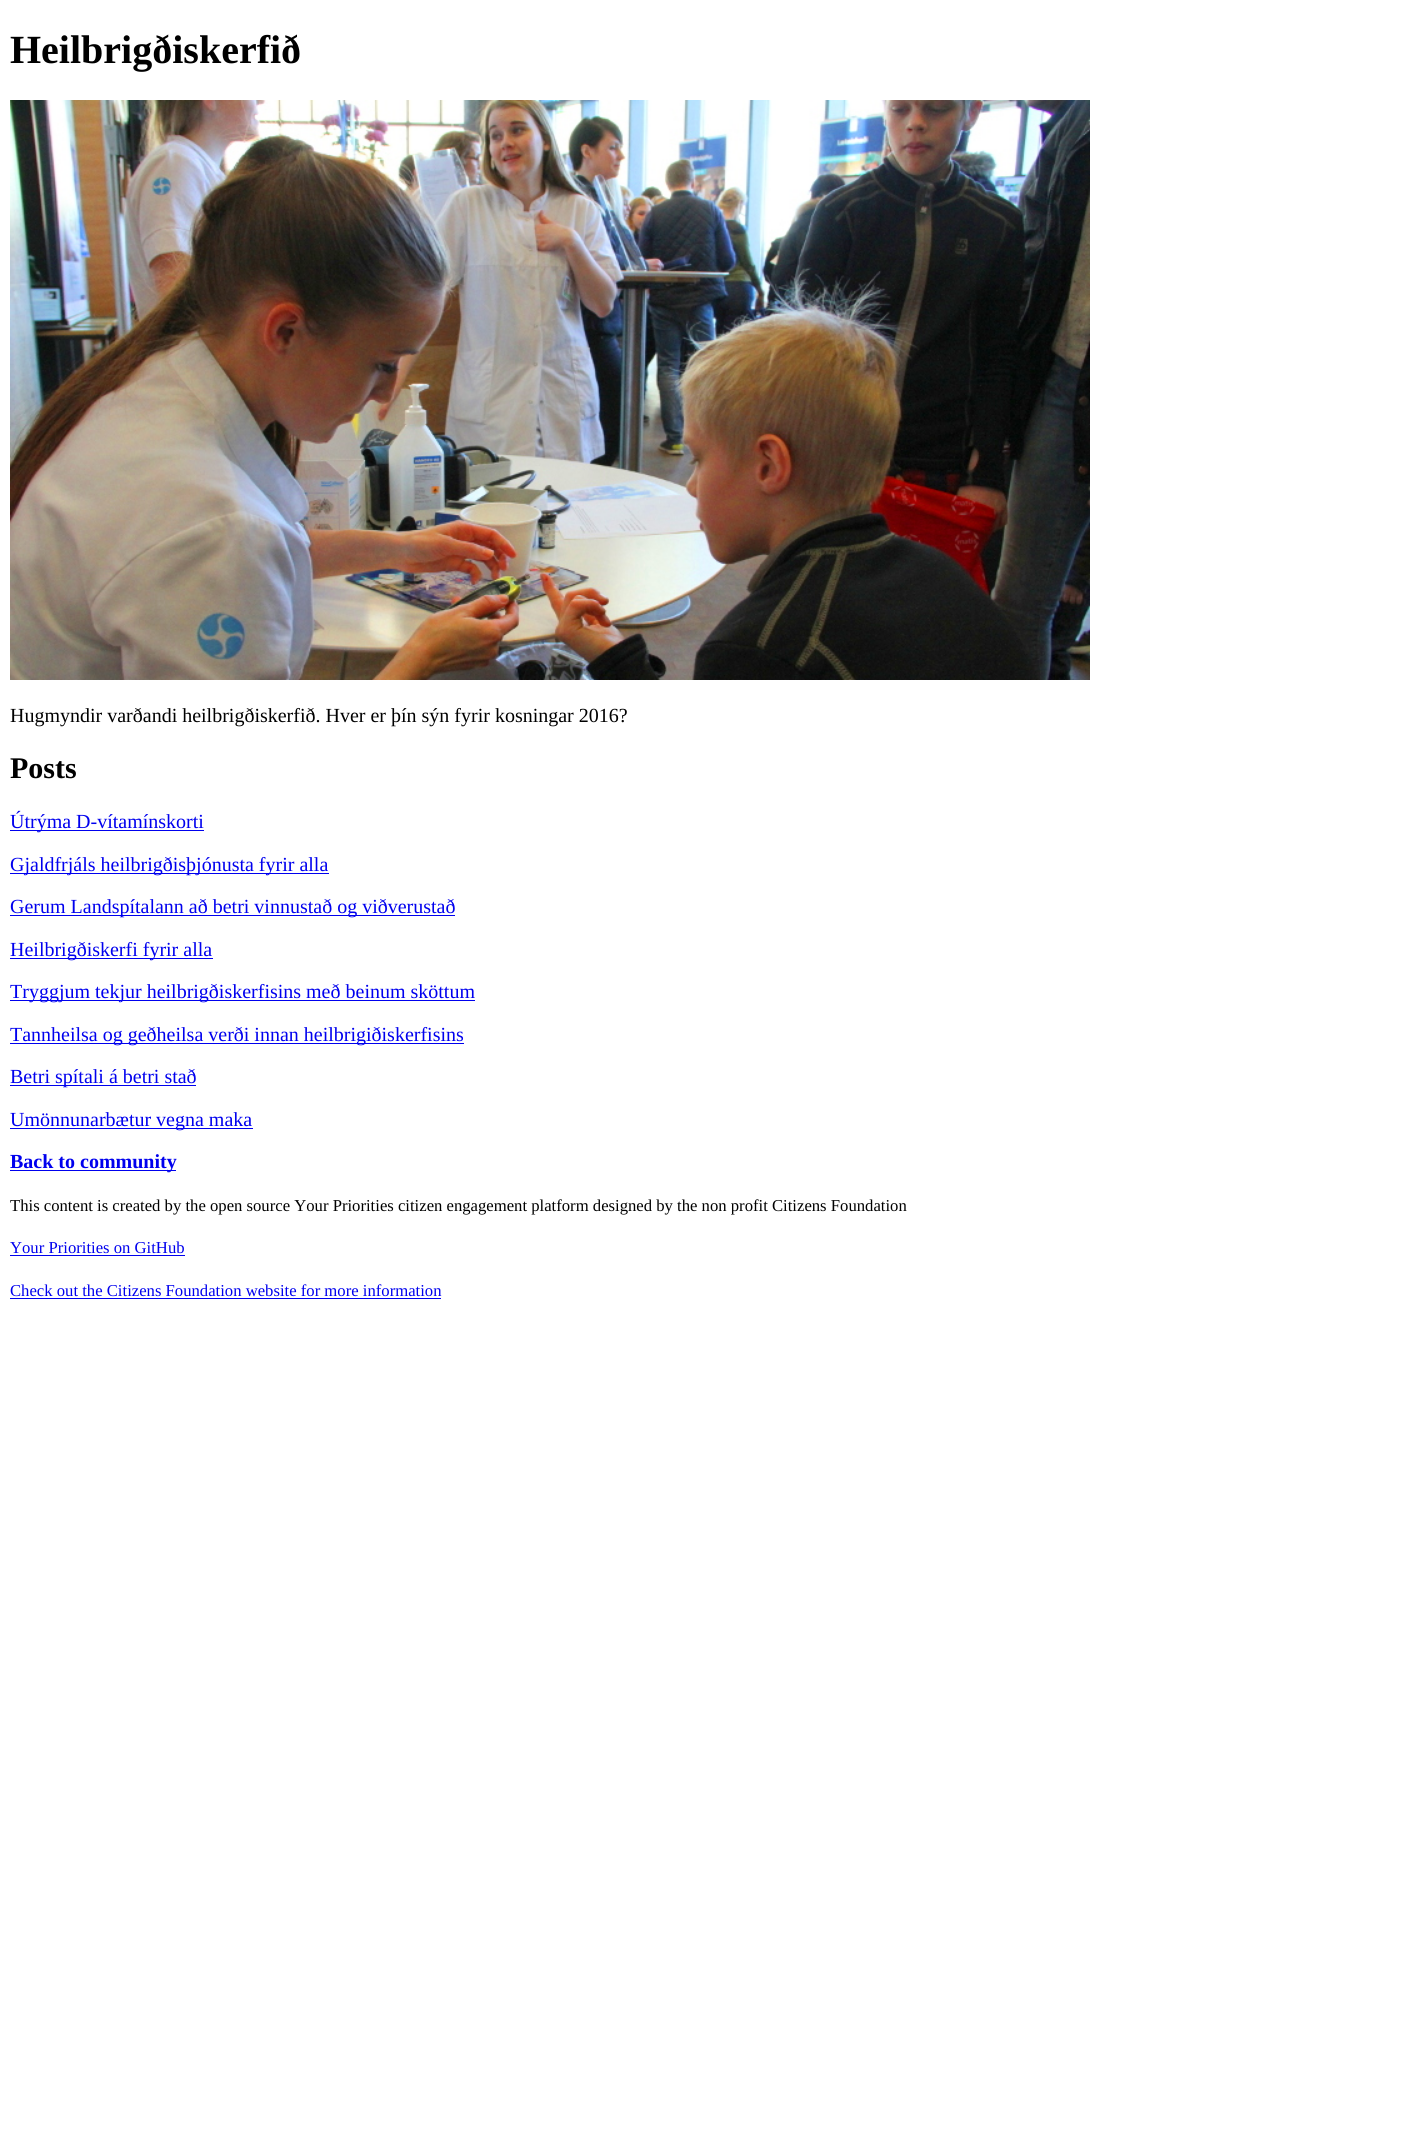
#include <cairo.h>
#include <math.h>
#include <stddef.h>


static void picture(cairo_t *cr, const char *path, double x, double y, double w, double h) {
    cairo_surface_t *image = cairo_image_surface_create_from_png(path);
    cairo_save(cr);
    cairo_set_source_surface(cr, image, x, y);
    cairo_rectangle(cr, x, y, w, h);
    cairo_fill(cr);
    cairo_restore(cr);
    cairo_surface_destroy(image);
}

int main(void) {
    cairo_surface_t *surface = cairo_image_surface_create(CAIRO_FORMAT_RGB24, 1402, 2132);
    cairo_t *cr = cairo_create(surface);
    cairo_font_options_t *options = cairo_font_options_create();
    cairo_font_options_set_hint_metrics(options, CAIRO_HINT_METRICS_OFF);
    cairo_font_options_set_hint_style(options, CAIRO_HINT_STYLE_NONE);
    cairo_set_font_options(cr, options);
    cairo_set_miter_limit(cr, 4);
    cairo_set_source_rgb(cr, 1, 1, 1);
    cairo_paint(cr);
    cairo_select_font_face(cr, "Liberation Serif", CAIRO_FONT_SLANT_NORMAL, CAIRO_FONT_WEIGHT_BOLD);
    cairo_set_font_size(cr, 40);
    cairo_set_source_rgb(cr, 0, 0, 0);
    cairo_move_to(cr, 10, 63);
    cairo_show_text(cr, "Heilbrigðiskerfið");
    picture(cr, "img1.png", 10, 100, 1080, 580);
    cairo_select_font_face(cr, "Liberation Serif", CAIRO_FONT_SLANT_NORMAL, CAIRO_FONT_WEIGHT_NORMAL);
    cairo_set_font_size(cr, 20);
    cairo_move_to(cr, 10, 722);
    cairo_show_text(cr, "Hugmyndir varðandi heilbrigðiskerfið. Hver er þín sýn fyrir kosningar 2016?");
    cairo_select_font_face(cr, "Liberation Serif", CAIRO_FONT_SLANT_NORMAL, CAIRO_FONT_WEIGHT_BOLD);
    cairo_set_font_size(cr, 30);
    cairo_move_to(cr, 10, 778);
    cairo_show_text(cr, "Posts");
    cairo_set_source_rgb(cr, 0, 0, 0.933);
    cairo_rectangle(cr, 10, 830, 194, 1);
    cairo_fill(cr);
    cairo_select_font_face(cr, "Liberation Serif", CAIRO_FONT_SLANT_NORMAL, CAIRO_FONT_WEIGHT_NORMAL);
    cairo_set_font_size(cr, 20);
    cairo_move_to(cr, 10, 828);
    cairo_show_text(cr, "Útrýma D-vítamínskorti");
    cairo_rectangle(cr, 10, 873, 319, 1);
    cairo_fill(cr);
    cairo_move_to(cr, 10, 871);
    cairo_show_text(cr, "Gjaldfrjáls heilbrigðisþjónusta fyrir alla");
    cairo_rectangle(cr, 10, 915, 445, 1);
    cairo_fill(cr);
    cairo_move_to(cr, 10, 913);
    cairo_show_text(cr, "Gerum Landspítalann að betri vinnustað og viðverustað");
    cairo_rectangle(cr, 10, 958, 203, 1);
    cairo_fill(cr);
    cairo_move_to(cr, 10, 956);
    cairo_show_text(cr, "Heilbrigðiskerfi fyrir alla");
    cairo_rectangle(cr, 10, 1000, 465, 1);
    cairo_fill(cr);
    cairo_move_to(cr, 10, 998);
    cairo_show_text(cr, "Tryggjum tekjur heilbrigðiskerfisins með beinum sköttum");
    cairo_rectangle(cr, 10, 1043, 454, 1);
    cairo_fill(cr);
    cairo_move_to(cr, 10, 1041);
    cairo_show_text(cr, "Tannheilsa og geðheilsa verði innan heilbrigiðiskerfisins");
    cairo_rectangle(cr, 10, 1085, 186, 1);
    cairo_fill(cr);
    cairo_move_to(cr, 10, 1083);
    cairo_show_text(cr, "Betri spítali á betri stað");
    cairo_rectangle(cr, 10, 1128, 243, 1);
    cairo_fill(cr);
    cairo_move_to(cr, 10, 1126);
    cairo_show_text(cr, "Umönnunarbætur vegna maka");
    cairo_rectangle(cr, 10, 1170, 166, 1);
    cairo_fill(cr);
    cairo_select_font_face(cr, "Liberation Serif", CAIRO_FONT_SLANT_NORMAL, CAIRO_FONT_WEIGHT_BOLD);
    cairo_move_to(cr, 10, 1168);
    cairo_show_text(cr, "Back to community");
    cairo_select_font_face(cr, "Liberation Serif", CAIRO_FONT_SLANT_NORMAL, CAIRO_FONT_WEIGHT_NORMAL);
    cairo_set_font_size(cr, 16.67);
    cairo_set_source_rgb(cr, 0, 0, 0);
    cairo_move_to(cr, 10, 1211);
    cairo_show_text(cr, "This content is created by the open source Your Priorities citizen engagement platform designed by the non profit Citizens Foundation");
    cairo_set_source_rgb(cr, 0, 0, 0.933);
    cairo_move_to(cr, 10, 1253);
    cairo_show_text(cr, "Your Priorities on GitHub");
    cairo_rectangle(cr, 10, 1255, 175, 1);
    cairo_fill(cr);
    cairo_move_to(cr, 10, 1296);
    cairo_show_text(cr, "Check out the Citizens Foundation website for more information");
    cairo_rectangle(cr, 10, 1298, 431, 1);
    cairo_fill(cr);
    cairo_surface_write_to_png(surface, "page.png");
    cairo_font_options_destroy(options);
    cairo_destroy(cr);
    cairo_surface_destroy(surface);
    return 0;
}
